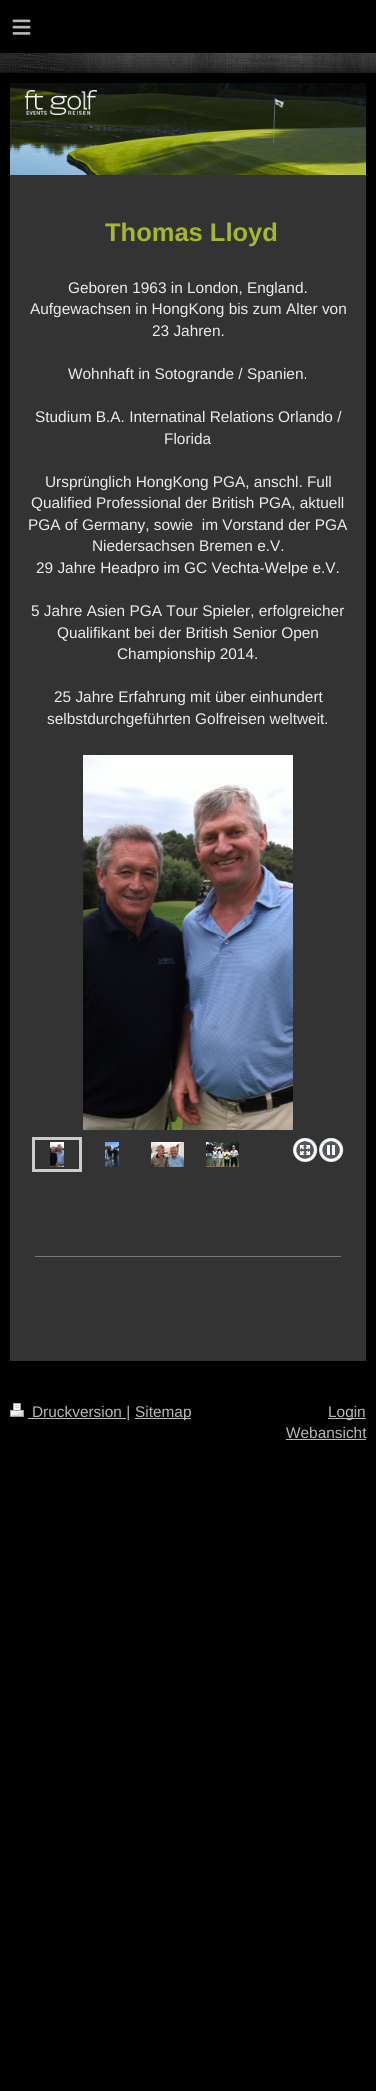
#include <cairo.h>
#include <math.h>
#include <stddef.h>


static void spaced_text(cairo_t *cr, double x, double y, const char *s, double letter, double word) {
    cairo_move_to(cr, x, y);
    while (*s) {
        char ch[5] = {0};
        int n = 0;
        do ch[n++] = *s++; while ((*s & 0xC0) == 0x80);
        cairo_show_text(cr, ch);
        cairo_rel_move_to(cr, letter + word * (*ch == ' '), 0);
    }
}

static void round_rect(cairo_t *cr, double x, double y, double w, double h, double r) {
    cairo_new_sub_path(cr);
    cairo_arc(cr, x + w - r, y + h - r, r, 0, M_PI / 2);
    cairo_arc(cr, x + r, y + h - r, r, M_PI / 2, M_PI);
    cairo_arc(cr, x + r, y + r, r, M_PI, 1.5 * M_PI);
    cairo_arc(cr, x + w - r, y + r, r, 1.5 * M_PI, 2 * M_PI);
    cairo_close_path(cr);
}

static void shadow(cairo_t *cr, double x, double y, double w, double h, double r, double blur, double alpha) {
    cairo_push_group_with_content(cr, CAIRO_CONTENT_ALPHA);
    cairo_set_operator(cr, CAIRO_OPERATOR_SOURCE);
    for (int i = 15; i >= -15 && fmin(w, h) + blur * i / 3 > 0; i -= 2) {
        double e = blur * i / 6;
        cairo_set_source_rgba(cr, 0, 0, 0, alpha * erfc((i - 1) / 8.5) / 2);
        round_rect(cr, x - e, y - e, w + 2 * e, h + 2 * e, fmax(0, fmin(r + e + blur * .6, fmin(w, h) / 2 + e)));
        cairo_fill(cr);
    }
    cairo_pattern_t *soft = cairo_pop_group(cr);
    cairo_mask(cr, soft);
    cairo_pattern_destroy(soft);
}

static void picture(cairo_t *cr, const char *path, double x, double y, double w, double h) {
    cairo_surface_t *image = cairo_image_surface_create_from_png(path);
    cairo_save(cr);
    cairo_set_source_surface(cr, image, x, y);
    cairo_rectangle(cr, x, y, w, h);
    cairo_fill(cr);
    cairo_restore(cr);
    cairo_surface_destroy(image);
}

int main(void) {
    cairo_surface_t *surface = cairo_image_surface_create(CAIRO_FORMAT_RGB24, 376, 2091);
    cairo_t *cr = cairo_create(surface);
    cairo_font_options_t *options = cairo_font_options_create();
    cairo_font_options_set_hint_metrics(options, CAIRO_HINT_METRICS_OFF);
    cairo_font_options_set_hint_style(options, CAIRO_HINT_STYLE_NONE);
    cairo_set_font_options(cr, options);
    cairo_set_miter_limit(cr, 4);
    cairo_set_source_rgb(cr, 0, 0, 0);
    cairo_paint(cr);
    picture(cr, "img1.png", 0, 53, 376, 20);
    cairo_select_font_face(cr, "Liberation Sans", CAIRO_FONT_SLANT_NORMAL, CAIRO_FONT_WEIGHT_NORMAL);
    cairo_set_font_size(cr, 36);
    cairo_set_source_rgb(cr, 0.722, 0.722, 0.722);
    spaced_text(cr, 11, 39, "≡", 10, 0);
    cairo_set_source_rgb(cr, 0, 0, 0);
    shadow(cr, 0, 73, 376, 1298, 0, 10, 1);
    picture(cr, "img2.png", 10, 83, 356, 92);
    picture(cr, "img3.png", 25, 90, 72, 25);
    cairo_set_source_rgb(cr, 0.2, 0.2, 0.2);
    cairo_rectangle(cr, 10, 175, 356, 1186);
    cairo_fill(cr);
    cairo_select_font_face(cr, "Liberation Sans", CAIRO_FONT_SLANT_NORMAL, CAIRO_FONT_WEIGHT_BOLD);
    cairo_set_font_size(cr, 25.5);
    cairo_set_source_rgb(cr, 0.647, 0.718, 0.188);
    cairo_move_to(cr, 105, 241);
    cairo_show_text(cr, "Thomas Lloyd");
    cairo_select_font_face(cr, "Liberation Sans", CAIRO_FONT_SLANT_NORMAL, CAIRO_FONT_WEIGHT_NORMAL);
    cairo_set_font_size(cr, 15.4);
    cairo_set_source_rgb(cr, 0.922, 0.922, 0.922);
    cairo_move_to(cr, 68, 293);
    cairo_show_text(cr, "Geboren 1963 in London, England.");
    cairo_move_to(cr, 30, 314);
    cairo_show_text(cr, "Aufgewachsen in HongKong bis zum Alter von");
    cairo_move_to(cr, 152, 336);
    cairo_show_text(cr, "23 Jahren.");
    cairo_move_to(cr, 68, 379);
    cairo_show_text(cr, "Wohnhaft in Sotogrande / Spanien.");
    cairo_move_to(cr, 35, 422);
    cairo_show_text(cr, "Studium B.A. Internatinal Relations Orlando /");
    cairo_move_to(cr, 164, 444);
    cairo_show_text(cr, "Florida");
    cairo_move_to(cr, 45, 487);
    cairo_show_text(cr, "Ursprünglich HongKong PGA, anschl. Full");
    cairo_move_to(cr, 31, 508);
    cairo_show_text(cr, "Qualified Professional der British PGA, aktuell");
    cairo_move_to(cr, 28, 530);
    cairo_show_text(cr, "PGA of Germany, sowie  im Vorstand der PGA");
    cairo_move_to(cr, 92, 551);
    cairo_show_text(cr, "Niedersachsen Bremen e.V.");
    cairo_move_to(cr, 36, 573);
    cairo_show_text(cr, "29 Jahre Headpro im GC Vechta-Welpe e.V.");
    cairo_move_to(cr, 31, 616);
    cairo_show_text(cr, "5 Jahre Asien PGA Tour Spieler, erfolgreicher");
    cairo_move_to(cr, 57, 638);
    cairo_show_text(cr, "Qualifikant bei der British Senior Open");
    cairo_move_to(cr, 117, 659);
    cairo_show_text(cr, "Championship 2014.");
    cairo_move_to(cr, 54, 702);
    cairo_show_text(cr, "25 Jahre Erfahrung mit über einhundert");
    cairo_move_to(cr, 47, 724);
    cairo_show_text(cr, "selbstdurchgeführten Golfreisen weltweit.");
    picture(cr, "img4.png", 83, 755, 210, 375);
    cairo_rectangle(cr, 33.5, 1138.5, 47, 32);
    cairo_set_source_rgb(cr, 0.8, 0.8, 0.8);
    cairo_set_line_width(cr, 3);
    cairo_stroke(cr);
    picture(cr, "img5.png", 50, 1142, 14, 25);
    picture(cr, "img6.png", 105, 1142, 14, 25);
    picture(cr, "img7.png", 151, 1142, 33, 25);
    picture(cr, "img8.png", 206, 1142, 33, 25);
    picture(cr, "img9.png", 293, 1137, 25, 25);
    picture(cr, "img10.png", 319, 1137, 25, 25);
    cairo_set_source_rgb(cr, 0.471, 0.471, 0.471);
    cairo_rectangle(cr, 35, 1256, 306, 1);
    cairo_fill(cr);
    picture(cr, "img11.png", 10, 1403, 14, 14);
    cairo_set_source_rgb(cr, 0.722, 0.722, 0.722);
    cairo_rectangle(cr, 28, 1418, 98, 1);
    cairo_fill(cr);
    cairo_move_to(cr, 32, 1417);
    cairo_show_text(cr, "Druckversion |");
    cairo_rectangle(cr, 135, 1418, 56, 1);
    cairo_fill(cr);
    cairo_move_to(cr, 135, 1417);
    cairo_show_text(cr, "Sitemap");
    cairo_rectangle(cr, 328, 1418, 38, 1);
    cairo_fill(cr);
    cairo_move_to(cr, 328, 1417);
    cairo_show_text(cr, "Login");
    cairo_move_to(cr, 286, 1438);
    cairo_show_text(cr, "Webansicht");
    cairo_rectangle(cr, 286, 1439, 80, 1);
    cairo_fill(cr);
    cairo_surface_write_to_png(surface, "page.png");
    cairo_font_options_destroy(options);
    cairo_destroy(cr);
    cairo_surface_destroy(surface);
    return 0;
}
